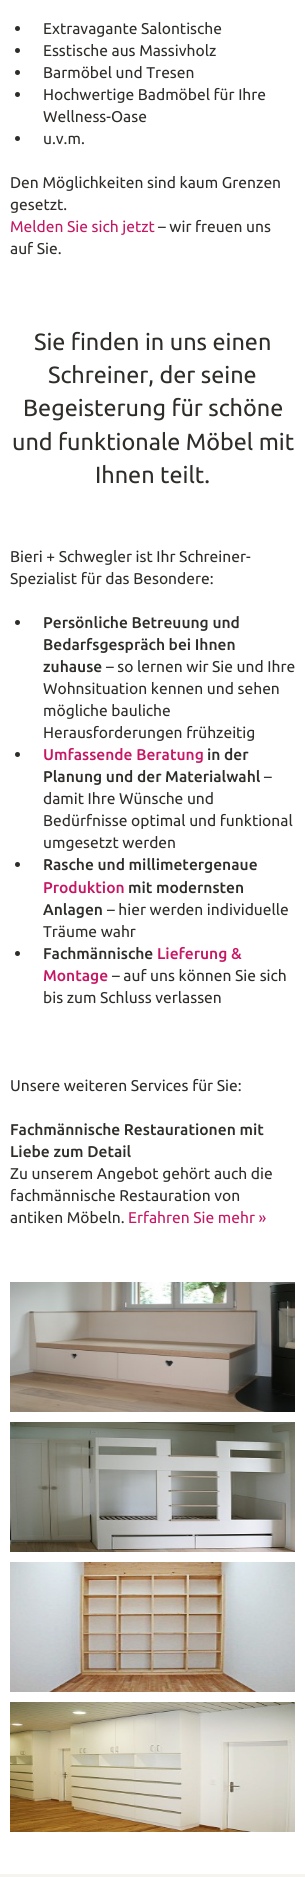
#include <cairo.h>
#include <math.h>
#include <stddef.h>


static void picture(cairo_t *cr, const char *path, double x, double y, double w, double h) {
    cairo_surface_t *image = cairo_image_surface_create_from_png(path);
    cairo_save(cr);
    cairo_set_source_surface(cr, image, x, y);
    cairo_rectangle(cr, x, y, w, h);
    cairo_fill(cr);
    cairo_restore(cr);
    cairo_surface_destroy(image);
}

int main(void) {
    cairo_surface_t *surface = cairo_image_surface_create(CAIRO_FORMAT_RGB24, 305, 1877);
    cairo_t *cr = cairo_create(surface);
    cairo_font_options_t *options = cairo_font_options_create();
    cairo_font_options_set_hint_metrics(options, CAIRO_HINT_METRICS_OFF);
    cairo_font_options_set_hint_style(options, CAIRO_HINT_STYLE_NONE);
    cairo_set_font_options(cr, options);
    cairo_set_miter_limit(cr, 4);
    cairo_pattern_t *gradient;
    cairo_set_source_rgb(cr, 1, 1, 1);
    cairo_paint(cr);
    cairo_set_source_rgb(cr, 0.184, 0.176, 0.165);
    cairo_arc(cr, 17.5, 28.5, 2.5, 0, 2 * M_PI);
    cairo_fill(cr);
    cairo_select_font_face(cr, "Ubuntu", CAIRO_FONT_SLANT_NORMAL, CAIRO_FONT_WEIGHT_NORMAL);
    cairo_set_font_size(cr, 15.6);
    cairo_move_to(cr, 43, 34);
    cairo_show_text(cr, "Extravagante Salontische");
    cairo_new_path(cr);
    cairo_arc(cr, 17.5, 50.5, 2.5, 0, 2 * M_PI);
    cairo_fill(cr);
    cairo_move_to(cr, 43, 56);
    cairo_show_text(cr, "Esstische aus Massivholz");
    cairo_new_path(cr);
    cairo_arc(cr, 17.5, 72.5, 2.5, 0, 2 * M_PI);
    cairo_fill(cr);
    cairo_move_to(cr, 43, 78);
    cairo_show_text(cr, "Barmöbel und Tresen");
    cairo_new_path(cr);
    cairo_arc(cr, 17.5, 94.5, 2.5, 0, 2 * M_PI);
    cairo_fill(cr);
    cairo_move_to(cr, 43, 100);
    cairo_show_text(cr, "Hochwertige Badmöbel für Ihre");
    cairo_move_to(cr, 43, 122);
    cairo_show_text(cr, "Wellness-Oase");
    cairo_new_path(cr);
    cairo_arc(cr, 17.5, 138.5, 2.5, 0, 2 * M_PI);
    cairo_fill(cr);
    cairo_move_to(cr, 43, 144);
    cairo_show_text(cr, "u.v.m.");
    cairo_move_to(cr, 10, 188);
    cairo_show_text(cr, "Den Möglichkeiten sind kaum Grenzen");
    cairo_move_to(cr, 10, 210);
    cairo_show_text(cr, "gesetzt.");
    cairo_set_source_rgb(cr, 0.773, 0.09, 0.392);
    cairo_move_to(cr, 10, 232);
    cairo_show_text(cr, "Melden Sie sich jetzt");
    cairo_set_source_rgb(cr, 0.184, 0.176, 0.165);
    cairo_move_to(cr, 158, 232);
    cairo_show_text(cr, "– wir freuen uns");
    cairo_move_to(cr, 10, 254);
    cairo_show_text(cr, "auf Sie.");
    cairo_set_font_size(cr, 23.4);
    cairo_move_to(cr, 34, 350);
    cairo_show_text(cr, "Sie finden in uns einen");
    cairo_move_to(cr, 48, 383);
    cairo_show_text(cr, "Schreiner, der seine");
    cairo_move_to(cr, 23, 416);
    cairo_show_text(cr, "Begeisterung für schöne");
    cairo_move_to(cr, 12, 450);
    cairo_show_text(cr, "und funktionale Möbel mit");
    cairo_move_to(cr, 95, 483);
    cairo_show_text(cr, "Ihnen teilt.");
    cairo_set_font_size(cr, 15.6);
    cairo_move_to(cr, 10, 562);
    cairo_show_text(cr, "Bieri + Schwegler ist Ihr Schreiner-");
    cairo_move_to(cr, 10, 584);
    cairo_show_text(cr, "Spezialist für das Besondere:");
    cairo_new_path(cr);
    cairo_arc(cr, 17.5, 622.5, 2.5, 0, 2 * M_PI);
    cairo_fill(cr);
    cairo_select_font_face(cr, "Ubuntu Medium", CAIRO_FONT_SLANT_NORMAL, CAIRO_FONT_WEIGHT_NORMAL);
    cairo_move_to(cr, 43, 628);
    cairo_show_text(cr, "Persönliche Betreuung und");
    cairo_move_to(cr, 43, 650);
    cairo_show_text(cr, "Bedarfsgespräch bei Ihnen");
    cairo_move_to(cr, 43, 672);
    cairo_show_text(cr, "zuhause");
    cairo_select_font_face(cr, "Ubuntu", CAIRO_FONT_SLANT_NORMAL, CAIRO_FONT_WEIGHT_NORMAL);
    cairo_move_to(cr, 106, 672);
    cairo_show_text(cr, "– so lernen wir Sie und Ihre");
    cairo_move_to(cr, 43, 694);
    cairo_show_text(cr, "Wohnsituation kennen und sehen");
    cairo_move_to(cr, 43, 716);
    cairo_show_text(cr, "mögliche bauliche");
    cairo_move_to(cr, 43, 738);
    cairo_show_text(cr, "Herausforderungen frühzeitig");
    cairo_new_path(cr);
    cairo_arc(cr, 17.5, 754.5, 2.5, 0, 2 * M_PI);
    cairo_fill(cr);
    cairo_select_font_face(cr, "Ubuntu Medium", CAIRO_FONT_SLANT_NORMAL, CAIRO_FONT_WEIGHT_NORMAL);
    cairo_set_source_rgb(cr, 0.773, 0.09, 0.392);
    cairo_move_to(cr, 43, 760);
    cairo_show_text(cr, "Umfassende Beratung");
    cairo_set_source_rgb(cr, 0.184, 0.176, 0.165);
    cairo_move_to(cr, 207, 760);
    cairo_show_text(cr, "in der");
    cairo_move_to(cr, 43, 782);
    cairo_show_text(cr, "Planung und der Materialwahl");
    cairo_select_font_face(cr, "Ubuntu", CAIRO_FONT_SLANT_NORMAL, CAIRO_FONT_WEIGHT_NORMAL);
    cairo_move_to(cr, 264, 782);
    cairo_show_text(cr, "–");
    cairo_move_to(cr, 43, 804);
    cairo_show_text(cr, "damit Ihre Wünsche und");
    cairo_move_to(cr, 43, 826);
    cairo_show_text(cr, "Bedürfnisse optimal und funktional");
    cairo_move_to(cr, 43, 848);
    cairo_show_text(cr, "umgesetzt werden");
    cairo_new_path(cr);
    cairo_arc(cr, 17.5, 864.5, 2.5, 0, 2 * M_PI);
    cairo_fill(cr);
    cairo_select_font_face(cr, "Ubuntu Medium", CAIRO_FONT_SLANT_NORMAL, CAIRO_FONT_WEIGHT_NORMAL);
    cairo_move_to(cr, 43, 870);
    cairo_show_text(cr, "Rasche und millimetergenaue");
    cairo_set_source_rgb(cr, 0.773, 0.09, 0.392);
    cairo_move_to(cr, 43, 893);
    cairo_show_text(cr, "Produktion");
    cairo_set_source_rgb(cr, 0.184, 0.176, 0.165);
    cairo_move_to(cr, 128, 893);
    cairo_show_text(cr, "mit modernsten");
    cairo_move_to(cr, 43, 915);
    cairo_show_text(cr, "Anlagen");
    cairo_select_font_face(cr, "Ubuntu", CAIRO_FONT_SLANT_NORMAL, CAIRO_FONT_WEIGHT_NORMAL);
    cairo_move_to(cr, 107, 915);
    cairo_show_text(cr, "– hier werden individuelle");
    cairo_move_to(cr, 43, 937);
    cairo_show_text(cr, "Träume wahr");
    cairo_new_path(cr);
    cairo_arc(cr, 17.5, 953.5, 2.5, 0, 2 * M_PI);
    cairo_fill(cr);
    cairo_select_font_face(cr, "Ubuntu Medium", CAIRO_FONT_SLANT_NORMAL, CAIRO_FONT_WEIGHT_NORMAL);
    cairo_move_to(cr, 43, 959);
    cairo_show_text(cr, "Fachmännische");
    cairo_set_source_rgb(cr, 0.773, 0.09, 0.392);
    cairo_move_to(cr, 157, 959);
    cairo_show_text(cr, "Lieferung &");
    cairo_move_to(cr, 43, 981);
    cairo_show_text(cr, "Montage");
    cairo_select_font_face(cr, "Ubuntu", CAIRO_FONT_SLANT_NORMAL, CAIRO_FONT_WEIGHT_NORMAL);
    cairo_set_source_rgb(cr, 0.184, 0.176, 0.165);
    cairo_move_to(cr, 112, 981);
    cairo_show_text(cr, "– auf uns können Sie sich");
    cairo_move_to(cr, 43, 1003);
    cairo_show_text(cr, "bis zum Schluss verlassen");
    cairo_move_to(cr, 10, 1091);
    cairo_show_text(cr, "Unsere weiteren Services für Sie:");
    cairo_select_font_face(cr, "Ubuntu Medium", CAIRO_FONT_SLANT_NORMAL, CAIRO_FONT_WEIGHT_NORMAL);
    cairo_move_to(cr, 10, 1135);
    cairo_show_text(cr, "Fachmännische Restaurationen mit");
    cairo_move_to(cr, 10, 1157);
    cairo_show_text(cr, "Liebe zum Detail");
    cairo_select_font_face(cr, "Ubuntu", CAIRO_FONT_SLANT_NORMAL, CAIRO_FONT_WEIGHT_NORMAL);
    cairo_move_to(cr, 10, 1179);
    cairo_show_text(cr, "Zu unserem Angebot gehört auch die");
    cairo_move_to(cr, 10, 1201);
    cairo_show_text(cr, "fachmännische Restauration von");
    cairo_move_to(cr, 10, 1223);
    cairo_show_text(cr, "antiken Möbeln.");
    cairo_set_source_rgb(cr, 0.773, 0.09, 0.392);
    cairo_move_to(cr, 128, 1223);
    cairo_show_text(cr, "Erfahren Sie mehr »");
    picture(cr, "img1.png", 10, 1282, 285, 130);
    picture(cr, "img2.png", 10, 1422, 285, 130);
    picture(cr, "img3.png", 10, 1562, 285, 130);
    picture(cr, "img4.png", 10, 1702, 285, 130);
    gradient = cairo_pattern_create_linear(152, 1874, 153, 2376);
    cairo_pattern_add_color_stop_rgba(gradient, 0, 0.965, 0.957, 0.937, 1);
    cairo_pattern_add_color_stop_rgba(gradient, 1, 0.929, 0.91, 0.871, 1);
    cairo_set_source(cr, gradient);
    cairo_pattern_destroy(gradient);
    cairo_rectangle(cr, 0, 1874, 305, 3);
    cairo_fill(cr);
    cairo_surface_write_to_png(surface, "page.png");
    cairo_font_options_destroy(options);
    cairo_destroy(cr);
    cairo_surface_destroy(surface);
    return 0;
}
